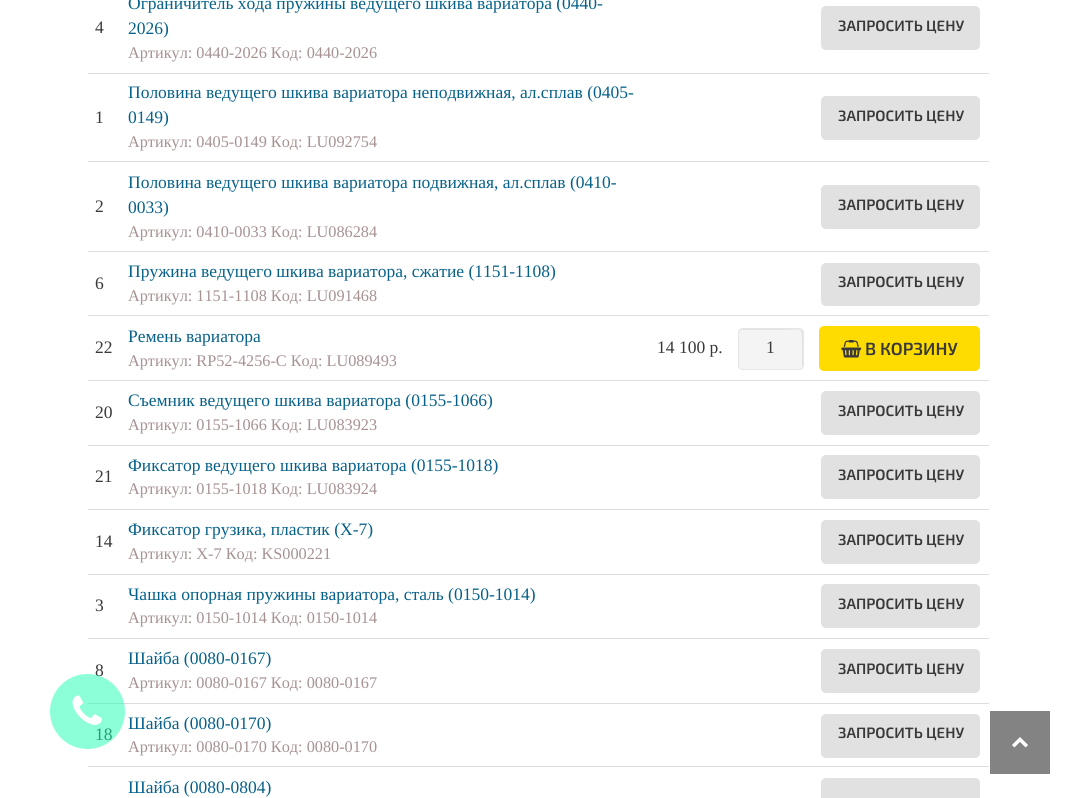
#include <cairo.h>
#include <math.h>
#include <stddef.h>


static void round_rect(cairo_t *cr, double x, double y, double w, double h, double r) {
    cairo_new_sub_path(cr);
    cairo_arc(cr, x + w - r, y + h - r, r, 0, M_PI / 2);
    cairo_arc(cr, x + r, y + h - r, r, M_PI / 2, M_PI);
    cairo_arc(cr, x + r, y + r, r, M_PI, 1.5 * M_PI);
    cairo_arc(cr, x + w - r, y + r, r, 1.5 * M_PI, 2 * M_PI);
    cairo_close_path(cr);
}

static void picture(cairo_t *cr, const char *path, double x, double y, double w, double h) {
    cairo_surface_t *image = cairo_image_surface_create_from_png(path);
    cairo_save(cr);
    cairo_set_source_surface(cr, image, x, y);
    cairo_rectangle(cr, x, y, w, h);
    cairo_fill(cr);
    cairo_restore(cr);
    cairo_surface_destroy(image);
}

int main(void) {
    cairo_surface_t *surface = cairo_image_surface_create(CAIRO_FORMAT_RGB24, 1075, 798);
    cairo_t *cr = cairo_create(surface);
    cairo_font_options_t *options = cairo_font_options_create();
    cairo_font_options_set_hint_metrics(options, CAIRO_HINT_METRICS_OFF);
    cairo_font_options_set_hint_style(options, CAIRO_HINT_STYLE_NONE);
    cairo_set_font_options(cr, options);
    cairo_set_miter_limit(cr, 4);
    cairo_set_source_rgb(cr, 1, 1, 1);
    cairo_paint(cr);
    cairo_select_font_face(cr, "Liberation Serif", CAIRO_FONT_SLANT_NORMAL, CAIRO_FONT_WEIGHT_NORMAL);
    cairo_set_font_size(cr, 17.5);
    cairo_set_source_rgb(cr, 0.224, 0.224, 0.224);
    cairo_move_to(cr, 95, 676);
    cairo_show_text(cr, "8");
    cairo_move_to(cr, 95, 740);
    cairo_show_text(cr, "18");
    cairo_set_source_rgb(cr, 0.867, 0.867, 0.867);
    cairo_rectangle(cr, 88, 703, 901, 1);
    cairo_fill(cr);
    cairo_set_source_rgba(cr, 0.102, 1, 0.702, 0.5);
    cairo_arc(cr, 87.5, 711.5, 37.5, 0, 2 * M_PI);
    cairo_fill(cr);
    picture(cr, "img1.png", 72, 695, 30, 30);
    cairo_set_source_rgb(cr, 0.224, 0.224, 0.224);
    cairo_move_to(cr, 95, 33);
    cairo_show_text(cr, "4");
    cairo_set_source_rgb(cr, 0.027, 0.38, 0.541);
    cairo_move_to(cr, 128, 9);
    cairo_show_text(cr, "Ограничитель хода пружины ведущего шкива вариатора (0440-");
    cairo_move_to(cr, 128, 34);
    cairo_show_text(cr, "2026)");
    cairo_set_font_size(cr, 16.25);
    cairo_set_source_rgb(cr, 0.655, 0.573, 0.573);
    cairo_move_to(cr, 128, 58);
    cairo_show_text(cr, "Артикул: 0440-2026 Код: 0440-2026");
    cairo_set_source_rgb(cr, 0.882, 0.882, 0.882);
    round_rect(cr, 821, 6, 159, 44, 5);
    cairo_fill(cr);
    cairo_select_font_face(cr, "Exo 2 SemiBold", CAIRO_FONT_SLANT_NORMAL, CAIRO_FONT_WEIGHT_NORMAL);
    cairo_set_font_size(cr, 15);
    cairo_set_source_rgb(cr, 0.224, 0.224, 0.224);
    cairo_move_to(cr, 838, 31);
    cairo_show_text(cr, "ЗАПРОСИТЬ ЦЕНУ");
    cairo_select_font_face(cr, "Liberation Serif", CAIRO_FONT_SLANT_NORMAL, CAIRO_FONT_WEIGHT_NORMAL);
    cairo_set_font_size(cr, 17.5);
    cairo_move_to(cr, 95, 123);
    cairo_show_text(cr, "1");
    cairo_set_source_rgb(cr, 0.027, 0.38, 0.541);
    cairo_move_to(cr, 128, 98);
    cairo_show_text(cr, "Половина ведущего шкива вариатора неподвижная, ал.сплав (0405-");
    cairo_move_to(cr, 128, 123);
    cairo_show_text(cr, "0149)");
    cairo_set_font_size(cr, 16.25);
    cairo_set_source_rgb(cr, 0.655, 0.573, 0.573);
    cairo_move_to(cr, 128, 147);
    cairo_show_text(cr, "Артикул: 0405-0149 Код: LU092754");
    cairo_set_source_rgb(cr, 0.867, 0.867, 0.867);
    cairo_rectangle(cr, 88, 73, 901, 1);
    cairo_fill(cr);
    cairo_set_source_rgb(cr, 0.882, 0.882, 0.882);
    round_rect(cr, 821, 96, 159, 44, 5);
    cairo_fill(cr);
    cairo_select_font_face(cr, "Exo 2 SemiBold", CAIRO_FONT_SLANT_NORMAL, CAIRO_FONT_WEIGHT_NORMAL);
    cairo_set_font_size(cr, 15);
    cairo_set_source_rgb(cr, 0.224, 0.224, 0.224);
    cairo_move_to(cr, 838, 121);
    cairo_show_text(cr, "ЗАПРОСИТЬ ЦЕНУ");
    cairo_select_font_face(cr, "Liberation Serif", CAIRO_FONT_SLANT_NORMAL, CAIRO_FONT_WEIGHT_NORMAL);
    cairo_set_font_size(cr, 17.5);
    cairo_move_to(cr, 95, 212);
    cairo_show_text(cr, "2");
    cairo_set_source_rgb(cr, 0.027, 0.38, 0.541);
    cairo_move_to(cr, 128, 188);
    cairo_show_text(cr, "Половина ведущего шкива вариатора подвижная, ал.сплав (0410-");
    cairo_move_to(cr, 128, 213);
    cairo_show_text(cr, "0033)");
    cairo_set_font_size(cr, 16.25);
    cairo_set_source_rgb(cr, 0.655, 0.573, 0.573);
    cairo_move_to(cr, 128, 237);
    cairo_show_text(cr, "Артикул: 0410-0033 Код: LU086284");
    cairo_set_source_rgb(cr, 0.867, 0.867, 0.867);
    cairo_rectangle(cr, 88, 161, 901, 1);
    cairo_fill(cr);
    cairo_set_source_rgb(cr, 0.882, 0.882, 0.882);
    round_rect(cr, 821, 185, 159, 44, 5);
    cairo_fill(cr);
    cairo_select_font_face(cr, "Exo 2 SemiBold", CAIRO_FONT_SLANT_NORMAL, CAIRO_FONT_WEIGHT_NORMAL);
    cairo_set_font_size(cr, 15);
    cairo_set_source_rgb(cr, 0.224, 0.224, 0.224);
    cairo_move_to(cr, 838, 210);
    cairo_show_text(cr, "ЗАПРОСИТЬ ЦЕНУ");
    cairo_select_font_face(cr, "Liberation Serif", CAIRO_FONT_SLANT_NORMAL, CAIRO_FONT_WEIGHT_NORMAL);
    cairo_set_font_size(cr, 17.5);
    cairo_move_to(cr, 95, 289);
    cairo_show_text(cr, "6");
    cairo_set_source_rgb(cr, 0.027, 0.38, 0.541);
    cairo_move_to(cr, 128, 277);
    cairo_show_text(cr, "Пружина ведущего шкива вариатора, сжатие (1151-1108)");
    cairo_set_font_size(cr, 16.25);
    cairo_set_source_rgb(cr, 0.655, 0.573, 0.573);
    cairo_move_to(cr, 128, 301);
    cairo_show_text(cr, "Артикул: 1151-1108 Код: LU091468");
    cairo_set_source_rgb(cr, 0.867, 0.867, 0.867);
    cairo_rectangle(cr, 88, 251, 901, 1);
    cairo_fill(cr);
    cairo_set_source_rgb(cr, 0.882, 0.882, 0.882);
    round_rect(cr, 821, 263, 159, 43, 5);
    cairo_fill(cr);
    cairo_select_font_face(cr, "Exo 2 SemiBold", CAIRO_FONT_SLANT_NORMAL, CAIRO_FONT_WEIGHT_NORMAL);
    cairo_set_font_size(cr, 15);
    cairo_set_source_rgb(cr, 0.224, 0.224, 0.224);
    cairo_move_to(cr, 838, 287);
    cairo_show_text(cr, "ЗАПРОСИТЬ ЦЕНУ");
    cairo_select_font_face(cr, "Liberation Serif", CAIRO_FONT_SLANT_NORMAL, CAIRO_FONT_WEIGHT_NORMAL);
    cairo_set_font_size(cr, 17.5);
    cairo_move_to(cr, 95, 353);
    cairo_show_text(cr, "22");
    cairo_set_source_rgb(cr, 0.027, 0.38, 0.541);
    cairo_move_to(cr, 128, 342);
    cairo_show_text(cr, "Ремень вариатора");
    cairo_set_font_size(cr, 16.25);
    cairo_set_source_rgb(cr, 0.655, 0.573, 0.573);
    cairo_move_to(cr, 128, 366);
    cairo_show_text(cr, "Артикул: RP52-4256-C Код: LU089493");
    cairo_set_font_size(cr, 17.5);
    cairo_set_source_rgb(cr, 0.224, 0.224, 0.224);
    cairo_move_to(cr, 657, 353);
    cairo_show_text(cr, "14 100 р.");
    cairo_set_source_rgb(cr, 0.957, 0.957, 0.957);
    round_rect(cr, 738, 328, 66, 42, 5);
    cairo_fill(cr);
    cairo_set_source_rgb(cr, 0.886, 0.886, 0.886);
    cairo_new_path(cr);
    cairo_move_to(cr, 742, 330);
    cairo_line_to(cr, 780, 330);
    cairo_curve_to(cr, 803, 330, 802, 325, 802, 345);
    cairo_line_to(cr, 802, 368);
    cairo_curve_to(cr, 802, 367, 803, 366, 803, 365);
    cairo_line_to(cr, 803, 333);
    cairo_curve_to(cr, 803, 331, 801, 329, 799, 329);
    cairo_line_to(cr, 743, 329);
    cairo_curve_to(cr, 741, 329, 739, 331, 739, 333);
    cairo_line_to(cr, 739, 334);
    cairo_curve_to(cr, 739, 332, 740, 330, 742, 330);
    cairo_close_path(cr);
    cairo_fill(cr);
    round_rect(cr, 738.5, 328.5, 65, 41, 4.5);
    cairo_set_source_rgb(cr, 0.902, 0.902, 0.902);
    cairo_set_line_width(cr, 1);
    cairo_stroke(cr);
    cairo_set_source_rgb(cr, 0.224, 0.224, 0.224);
    cairo_move_to(cr, 766, 353);
    cairo_show_text(cr, "1");
    cairo_set_source_rgb(cr, 0.867, 0.867, 0.867);
    cairo_rectangle(cr, 88, 315, 901, 1);
    cairo_fill(cr);
    cairo_set_source_rgb(cr, 0.996, 0.859, 0.004);
    round_rect(cr, 820.5, 327.5, 158, 42, 3.5);
    cairo_fill_preserve(cr);
    cairo_set_line_width(cr, 3);
    cairo_stroke(cr);
    picture(cr, "img2.png", 841, 340, 21, 18);
    cairo_select_font_face(cr, "Exo 2 SemiBold", CAIRO_FONT_SLANT_NORMAL, CAIRO_FONT_WEIGHT_NORMAL);
    cairo_set_source_rgb(cr, 0.224, 0.224, 0.224);
    cairo_move_to(cr, 865, 355);
    cairo_show_text(cr, "В КОРЗИНУ");
    cairo_select_font_face(cr, "Liberation Serif", CAIRO_FONT_SLANT_NORMAL, CAIRO_FONT_WEIGHT_NORMAL);
    cairo_move_to(cr, 95, 418);
    cairo_show_text(cr, "20");
    cairo_set_source_rgb(cr, 0.027, 0.38, 0.541);
    cairo_move_to(cr, 128, 406);
    cairo_show_text(cr, "Съемник ведущего шкива вариатора (0155-1066)");
    cairo_set_font_size(cr, 16.25);
    cairo_set_source_rgb(cr, 0.655, 0.573, 0.573);
    cairo_move_to(cr, 128, 430);
    cairo_show_text(cr, "Артикул: 0155-1066 Код: LU083923");
    cairo_set_source_rgb(cr, 0.867, 0.867, 0.867);
    cairo_rectangle(cr, 88, 380, 901, 1);
    cairo_fill(cr);
    cairo_set_source_rgb(cr, 0.882, 0.882, 0.882);
    round_rect(cr, 821, 391, 159, 44, 5);
    cairo_fill(cr);
    cairo_select_font_face(cr, "Exo 2 SemiBold", CAIRO_FONT_SLANT_NORMAL, CAIRO_FONT_WEIGHT_NORMAL);
    cairo_set_font_size(cr, 15);
    cairo_set_source_rgb(cr, 0.224, 0.224, 0.224);
    cairo_move_to(cr, 838, 416);
    cairo_show_text(cr, "ЗАПРОСИТЬ ЦЕНУ");
    cairo_select_font_face(cr, "Liberation Serif", CAIRO_FONT_SLANT_NORMAL, CAIRO_FONT_WEIGHT_NORMAL);
    cairo_set_font_size(cr, 17.5);
    cairo_move_to(cr, 95, 482);
    cairo_show_text(cr, "21");
    cairo_set_source_rgb(cr, 0.027, 0.38, 0.541);
    cairo_move_to(cr, 128, 471);
    cairo_show_text(cr, "Фиксатор ведущего шкива вариатора (0155-1018)");
    cairo_set_font_size(cr, 16.25);
    cairo_set_source_rgb(cr, 0.655, 0.573, 0.573);
    cairo_move_to(cr, 128, 494);
    cairo_show_text(cr, "Артикул: 0155-1018 Код: LU083924");
    cairo_set_source_rgb(cr, 0.867, 0.867, 0.867);
    cairo_rectangle(cr, 88, 445, 901, 1);
    cairo_fill(cr);
    cairo_set_source_rgb(cr, 0.882, 0.882, 0.882);
    round_rect(cr, 821, 455, 159, 44, 5);
    cairo_fill(cr);
    cairo_select_font_face(cr, "Exo 2 SemiBold", CAIRO_FONT_SLANT_NORMAL, CAIRO_FONT_WEIGHT_NORMAL);
    cairo_set_font_size(cr, 15);
    cairo_set_source_rgb(cr, 0.224, 0.224, 0.224);
    cairo_move_to(cr, 838, 480);
    cairo_show_text(cr, "ЗАПРОСИТЬ ЦЕНУ");
    cairo_select_font_face(cr, "Liberation Serif", CAIRO_FONT_SLANT_NORMAL, CAIRO_FONT_WEIGHT_NORMAL);
    cairo_set_font_size(cr, 17.5);
    cairo_move_to(cr, 95, 547);
    cairo_show_text(cr, "14");
    cairo_set_source_rgb(cr, 0.027, 0.38, 0.541);
    cairo_move_to(cr, 128, 535);
    cairo_show_text(cr, "Фиксатор грузика, пластик (X-7)");
    cairo_set_font_size(cr, 16.25);
    cairo_set_source_rgb(cr, 0.655, 0.573, 0.573);
    cairo_move_to(cr, 128, 559);
    cairo_show_text(cr, "Артикул: X-7 Код: KS000221");
    cairo_set_source_rgb(cr, 0.867, 0.867, 0.867);
    cairo_rectangle(cr, 88, 509, 901, 1);
    cairo_fill(cr);
    cairo_set_source_rgb(cr, 0.882, 0.882, 0.882);
    round_rect(cr, 821, 520, 159, 44, 5);
    cairo_fill(cr);
    cairo_select_font_face(cr, "Exo 2 SemiBold", CAIRO_FONT_SLANT_NORMAL, CAIRO_FONT_WEIGHT_NORMAL);
    cairo_set_font_size(cr, 15);
    cairo_set_source_rgb(cr, 0.224, 0.224, 0.224);
    cairo_move_to(cr, 838, 545);
    cairo_show_text(cr, "ЗАПРОСИТЬ ЦЕНУ");
    cairo_select_font_face(cr, "Liberation Serif", CAIRO_FONT_SLANT_NORMAL, CAIRO_FONT_WEIGHT_NORMAL);
    cairo_set_font_size(cr, 17.5);
    cairo_move_to(cr, 95, 611);
    cairo_show_text(cr, "3");
    cairo_set_source_rgb(cr, 0.027, 0.38, 0.541);
    cairo_move_to(cr, 128, 600);
    cairo_show_text(cr, "Чашка опорная пружины вариатора, сталь (0150-1014)");
    cairo_set_font_size(cr, 16.25);
    cairo_set_source_rgb(cr, 0.655, 0.573, 0.573);
    cairo_move_to(cr, 128, 623);
    cairo_show_text(cr, "Артикул: 0150-1014 Код: 0150-1014");
    cairo_set_source_rgb(cr, 0.867, 0.867, 0.867);
    cairo_rectangle(cr, 88, 574, 901, 1);
    cairo_fill(cr);
    cairo_set_source_rgb(cr, 0.882, 0.882, 0.882);
    round_rect(cr, 821, 584, 159, 44, 5);
    cairo_fill(cr);
    cairo_select_font_face(cr, "Exo 2 SemiBold", CAIRO_FONT_SLANT_NORMAL, CAIRO_FONT_WEIGHT_NORMAL);
    cairo_set_font_size(cr, 15);
    cairo_set_source_rgb(cr, 0.224, 0.224, 0.224);
    cairo_move_to(cr, 838, 609);
    cairo_show_text(cr, "ЗАПРОСИТЬ ЦЕНУ");
    cairo_select_font_face(cr, "Liberation Serif", CAIRO_FONT_SLANT_NORMAL, CAIRO_FONT_WEIGHT_NORMAL);
    cairo_set_font_size(cr, 17.5);
    cairo_set_source_rgb(cr, 0.027, 0.38, 0.541);
    cairo_move_to(cr, 128, 664);
    cairo_show_text(cr, "Шайба (0080-0167)");
    cairo_set_font_size(cr, 16.25);
    cairo_set_source_rgb(cr, 0.655, 0.573, 0.573);
    cairo_move_to(cr, 128, 688);
    cairo_show_text(cr, "Артикул: 0080-0167 Код: 0080-0167");
    cairo_set_source_rgb(cr, 0.867, 0.867, 0.867);
    cairo_rectangle(cr, 88, 638, 901, 1);
    cairo_fill(cr);
    cairo_set_source_rgb(cr, 0.882, 0.882, 0.882);
    round_rect(cr, 821, 649, 159, 44, 5);
    cairo_fill(cr);
    cairo_select_font_face(cr, "Exo 2 SemiBold", CAIRO_FONT_SLANT_NORMAL, CAIRO_FONT_WEIGHT_NORMAL);
    cairo_set_font_size(cr, 15);
    cairo_set_source_rgb(cr, 0.224, 0.224, 0.224);
    cairo_move_to(cr, 838, 674);
    cairo_show_text(cr, "ЗАПРОСИТЬ ЦЕНУ");
    cairo_select_font_face(cr, "Liberation Serif", CAIRO_FONT_SLANT_NORMAL, CAIRO_FONT_WEIGHT_NORMAL);
    cairo_set_font_size(cr, 17.5);
    cairo_set_source_rgb(cr, 0.027, 0.38, 0.541);
    cairo_move_to(cr, 128, 729);
    cairo_show_text(cr, "Шайба (0080-0170)");
    cairo_set_font_size(cr, 16.25);
    cairo_set_source_rgb(cr, 0.655, 0.573, 0.573);
    cairo_move_to(cr, 128, 752);
    cairo_show_text(cr, "Артикул: 0080-0170 Код: 0080-0170");
    cairo_set_source_rgb(cr, 0.882, 0.882, 0.882);
    round_rect(cr, 821, 714, 159, 44, 5);
    cairo_fill(cr);
    cairo_select_font_face(cr, "Exo 2 SemiBold", CAIRO_FONT_SLANT_NORMAL, CAIRO_FONT_WEIGHT_NORMAL);
    cairo_set_font_size(cr, 15);
    cairo_set_source_rgb(cr, 0.224, 0.224, 0.224);
    cairo_move_to(cr, 838, 738);
    cairo_show_text(cr, "ЗАПРОСИТЬ ЦЕНУ");
    cairo_set_source_rgb(cr, 0.867, 0.867, 0.867);
    cairo_rectangle(cr, 88, 766, 901, 1);
    cairo_fill(cr);
    cairo_set_source_rgb(cr, 0.882, 0.882, 0.882);
    round_rect(cr, 821, 778, 159, 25, 5);
    cairo_fill(cr);
    cairo_select_font_face(cr, "Liberation Serif", CAIRO_FONT_SLANT_NORMAL, CAIRO_FONT_WEIGHT_NORMAL);
    cairo_set_font_size(cr, 17.5);
    cairo_set_source_rgb(cr, 0.027, 0.38, 0.541);
    cairo_move_to(cr, 128, 793);
    cairo_show_text(cr, "Шайба (0080-0804)");
    cairo_set_source_rgb(cr, 0.514, 0.514, 0.514);
    cairo_rectangle(cr, 990, 711, 60, 63);
    cairo_fill(cr);
    picture(cr, "img3.png", 1012, 737, 16, 11);
    cairo_surface_write_to_png(surface, "page.png");
    cairo_font_options_destroy(options);
    cairo_destroy(cr);
    cairo_surface_destroy(surface);
    return 0;
}
